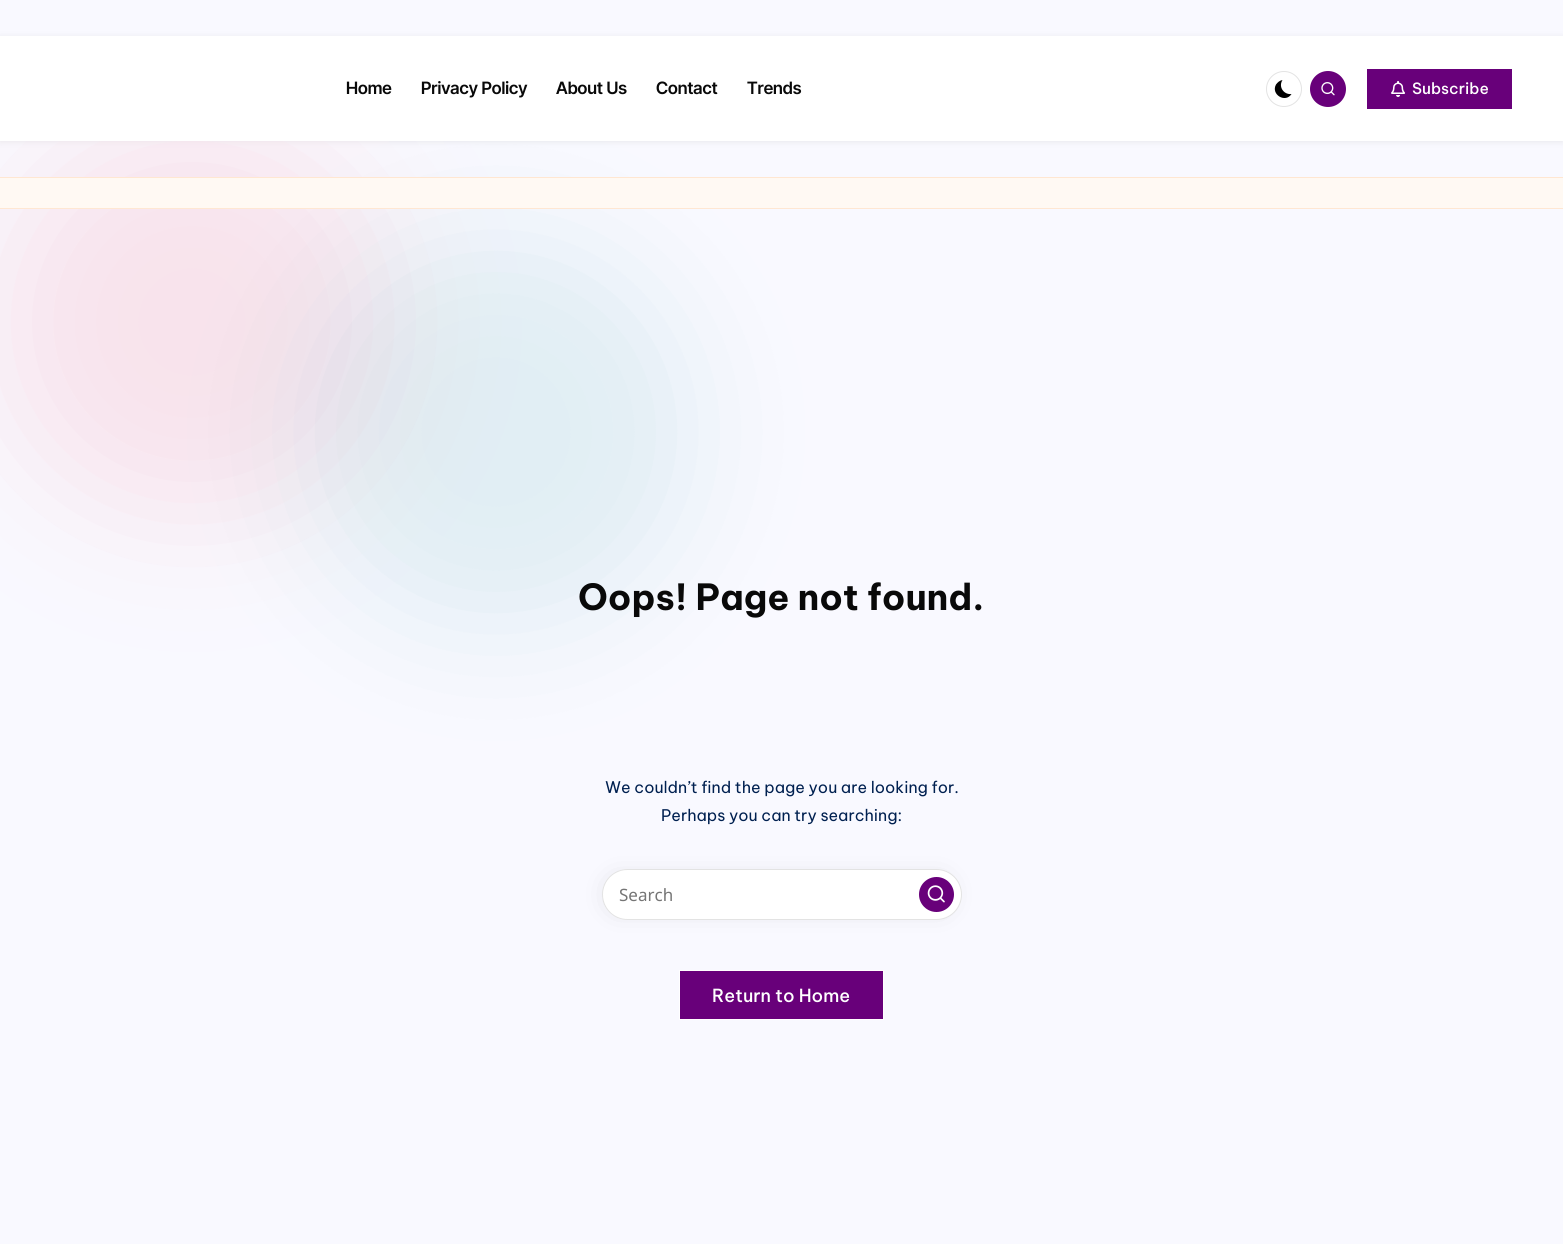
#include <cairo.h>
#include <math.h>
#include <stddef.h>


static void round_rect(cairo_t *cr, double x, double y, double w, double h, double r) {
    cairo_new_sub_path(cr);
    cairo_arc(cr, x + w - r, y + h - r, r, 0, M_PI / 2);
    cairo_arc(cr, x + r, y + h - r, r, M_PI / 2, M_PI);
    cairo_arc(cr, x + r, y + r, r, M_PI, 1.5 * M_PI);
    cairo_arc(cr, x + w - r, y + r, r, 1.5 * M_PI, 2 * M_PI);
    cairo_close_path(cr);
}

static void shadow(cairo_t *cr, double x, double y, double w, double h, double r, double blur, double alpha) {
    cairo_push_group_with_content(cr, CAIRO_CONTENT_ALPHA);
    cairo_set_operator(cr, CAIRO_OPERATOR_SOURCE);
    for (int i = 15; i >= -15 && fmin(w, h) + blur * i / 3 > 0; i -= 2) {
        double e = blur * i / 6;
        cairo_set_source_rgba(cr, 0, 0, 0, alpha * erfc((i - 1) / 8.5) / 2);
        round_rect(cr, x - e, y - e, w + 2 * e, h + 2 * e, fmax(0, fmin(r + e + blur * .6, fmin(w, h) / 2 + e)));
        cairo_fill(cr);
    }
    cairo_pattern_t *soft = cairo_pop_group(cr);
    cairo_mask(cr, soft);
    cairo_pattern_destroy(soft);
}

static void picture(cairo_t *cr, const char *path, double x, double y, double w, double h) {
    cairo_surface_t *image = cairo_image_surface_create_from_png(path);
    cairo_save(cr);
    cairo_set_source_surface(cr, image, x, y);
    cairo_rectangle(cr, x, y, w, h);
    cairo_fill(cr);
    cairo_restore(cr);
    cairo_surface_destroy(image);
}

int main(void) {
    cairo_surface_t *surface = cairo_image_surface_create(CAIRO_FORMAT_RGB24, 1563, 1244);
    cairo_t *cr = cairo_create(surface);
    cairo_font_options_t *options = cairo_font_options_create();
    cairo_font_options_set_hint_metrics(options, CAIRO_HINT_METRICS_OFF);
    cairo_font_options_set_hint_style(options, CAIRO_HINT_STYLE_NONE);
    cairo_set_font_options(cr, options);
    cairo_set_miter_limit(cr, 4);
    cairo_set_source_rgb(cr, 0.976, 0.976, 1);
    cairo_paint(cr);
    cairo_set_source_rgb(cr, 0.745, 0.745, 0.745);
    shadow(cr, 0, 37, 1563, 105, 0, 3, 0.3);
    cairo_save(cr);
    cairo_rectangle(cr, 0, 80, 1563, 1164);
    cairo_clip(cr);
    cairo_set_source_rgb(cr, 0.969, 0.89, 0.925);
    shadow(cr, 0, 130, 384, 384, 192, 64, 1);
    cairo_restore(cr);
    cairo_set_source_rgb(cr, 0.016, 0.525, 0.545);
    shadow(cr, 304, 240, 384, 384, 192, 64, 0.1);
    cairo_set_source_rgb(cr, 1, 1, 1);
    cairo_rectangle(cr, 0, 36, 1563, 105);
    cairo_fill(cr);
    cairo_select_font_face(cr, "Inter Tight SemiBold", CAIRO_FONT_SLANT_NORMAL, CAIRO_FONT_WEIGHT_NORMAL);
    cairo_set_font_size(cr, 17);
    cairo_set_source_rgb(cr, 0.039, 0.039, 0.039);
    cairo_move_to(cr, 346, 94);
    cairo_show_text(cr, "Home");
    cairo_move_to(cr, 421, 94);
    cairo_show_text(cr, "Privacy Policy");
    cairo_move_to(cr, 556, 94);
    cairo_show_text(cr, "About Us");
    cairo_move_to(cr, 656, 94);
    cairo_show_text(cr, "Contact");
    cairo_move_to(cr, 747, 94);
    cairo_show_text(cr, "Trends");
    cairo_new_path(cr);
    cairo_arc(cr, 1284, 89, 17.5, 0, 2 * M_PI);
    cairo_set_source_rgb(cr, 0.89, 0.89, 0.89);
    cairo_set_line_width(cr, 1);
    cairo_stroke(cr);
    cairo_set_source_rgb(cr, 0, 0, 0);
    cairo_new_path(cr);
    cairo_move_to(cr, 1291.5, 94);
    cairo_curve_to(cr, 1284, 95, 1278, 87, 1282.5, 80);
    cairo_curve_to(cr, 1279.5, 80.5, 1277.5, 82.5, 1276, 84.5);
    cairo_curve_to(cr, 1270.5, 94.5, 1285.5, 103.5, 1291.5, 94);
    cairo_close_path(cr);
    cairo_fill(cr);
    cairo_set_source_rgb(cr, 0.408, 0, 0.478);
    cairo_arc(cr, 1328, 89, 18, 0, 2 * M_PI);
    cairo_fill(cr);
    picture(cr, "img1.png", 1321, 82, 14, 14);
    cairo_rectangle(cr, 1367, 69, 145, 40);
    cairo_fill(cr);
    picture(cr, "img2.png", 1391, 81, 14, 16);
    cairo_select_font_face(cr, "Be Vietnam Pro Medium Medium", CAIRO_FONT_SLANT_NORMAL, CAIRO_FONT_WEIGHT_NORMAL);
    cairo_set_font_size(cr, 15.5);
    cairo_set_source_rgb(cr, 1, 1, 1);
    cairo_move_to(cr, 1412, 94);
    cairo_show_text(cr, "Subscribe");
    cairo_set_source_rgb(cr, 1, 0.976, 0.953);
    cairo_rectangle(cr, 0, 178, 1563, 30);
    cairo_fill(cr);
    cairo_set_source_rgb(cr, 1, 0.906, 0.824);
    cairo_rectangle(cr, 0, 177, 1563, 1);
    cairo_fill(cr);
    cairo_rectangle(cr, 0, 208, 1563, 1);
    cairo_fill(cr);
    cairo_select_font_face(cr, "Be Vietnam Pro", CAIRO_FONT_SLANT_NORMAL, CAIRO_FONT_WEIGHT_BOLD);
    cairo_set_font_size(cr, 36);
    cairo_set_source_rgb(cr, 0.039, 0.039, 0.039);
    cairo_move_to(cr, 578, 610);
    cairo_show_text(cr, "Oops! Page not found.");
    cairo_select_font_face(cr, "Be Vietnam Pro", CAIRO_FONT_SLANT_NORMAL, CAIRO_FONT_WEIGHT_NORMAL);
    cairo_set_font_size(cr, 16);
    cairo_set_source_rgb(cr, 0, 0.125, 0.314);
    cairo_move_to(cr, 605, 793);
    cairo_show_text(cr, "We couldn’t find the page you are looking for.");
    cairo_move_to(cr, 661, 821);
    cairo_show_text(cr, "Perhaps you can try searching:");
    cairo_set_source_rgb(cr, 0, 0, 0);
    shadow(cr, 615, 885, 328, 19, 9.5, 16, 0.15);
    cairo_set_source_rgb(cr, 1, 1, 1);
    round_rect(cr, 602, 869, 360, 51, 25.5);
    cairo_fill(cr);
    round_rect(cr, 602.5, 869.5, 359, 50, 25);
    cairo_set_source_rgba(cr, 0.725, 0.725, 0.725, 0.4);
    cairo_stroke(cr);
    cairo_select_font_face(cr, "Noto Sans", CAIRO_FONT_SLANT_NORMAL, CAIRO_FONT_WEIGHT_NORMAL);
    cairo_set_font_size(cr, 17);
    cairo_set_source_rgb(cr, 0.459, 0.459, 0.459);
    cairo_move_to(cr, 619, 901);
    cairo_show_text(cr, "Search");
    cairo_set_source_rgb(cr, 0.408, 0, 0.478);
    cairo_new_path(cr);
    cairo_arc(cr, 936.5, 894.5, 17.5, 0, 2 * M_PI);
    cairo_fill(cr);
    picture(cr, "img3.png", 927, 885, 18, 18);
    cairo_rectangle(cr, 679.5, 970.5, 204, 49);
    cairo_fill_preserve(cr);
    cairo_set_source_rgb(cr, 1, 1, 1);
    cairo_stroke(cr);
    cairo_select_font_face(cr, "Be Vietnam Pro Medium Medium", CAIRO_FONT_SLANT_NORMAL, CAIRO_FONT_WEIGHT_NORMAL);
    cairo_set_font_size(cr, 18);
    cairo_move_to(cr, 712, 1002);
    cairo_show_text(cr, "Return to Home");
    cairo_surface_write_to_png(surface, "page.png");
    cairo_font_options_destroy(options);
    cairo_destroy(cr);
    cairo_surface_destroy(surface);
    return 0;
}
